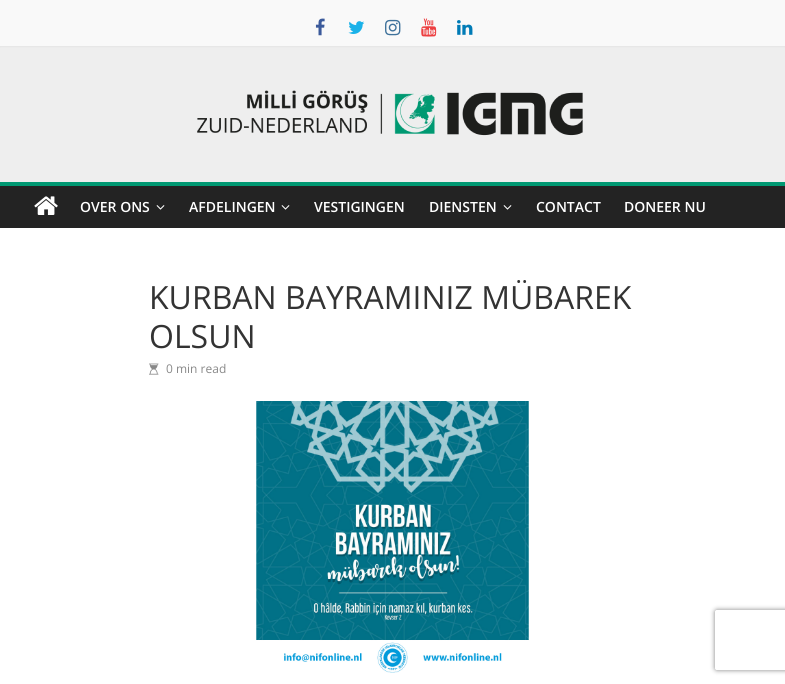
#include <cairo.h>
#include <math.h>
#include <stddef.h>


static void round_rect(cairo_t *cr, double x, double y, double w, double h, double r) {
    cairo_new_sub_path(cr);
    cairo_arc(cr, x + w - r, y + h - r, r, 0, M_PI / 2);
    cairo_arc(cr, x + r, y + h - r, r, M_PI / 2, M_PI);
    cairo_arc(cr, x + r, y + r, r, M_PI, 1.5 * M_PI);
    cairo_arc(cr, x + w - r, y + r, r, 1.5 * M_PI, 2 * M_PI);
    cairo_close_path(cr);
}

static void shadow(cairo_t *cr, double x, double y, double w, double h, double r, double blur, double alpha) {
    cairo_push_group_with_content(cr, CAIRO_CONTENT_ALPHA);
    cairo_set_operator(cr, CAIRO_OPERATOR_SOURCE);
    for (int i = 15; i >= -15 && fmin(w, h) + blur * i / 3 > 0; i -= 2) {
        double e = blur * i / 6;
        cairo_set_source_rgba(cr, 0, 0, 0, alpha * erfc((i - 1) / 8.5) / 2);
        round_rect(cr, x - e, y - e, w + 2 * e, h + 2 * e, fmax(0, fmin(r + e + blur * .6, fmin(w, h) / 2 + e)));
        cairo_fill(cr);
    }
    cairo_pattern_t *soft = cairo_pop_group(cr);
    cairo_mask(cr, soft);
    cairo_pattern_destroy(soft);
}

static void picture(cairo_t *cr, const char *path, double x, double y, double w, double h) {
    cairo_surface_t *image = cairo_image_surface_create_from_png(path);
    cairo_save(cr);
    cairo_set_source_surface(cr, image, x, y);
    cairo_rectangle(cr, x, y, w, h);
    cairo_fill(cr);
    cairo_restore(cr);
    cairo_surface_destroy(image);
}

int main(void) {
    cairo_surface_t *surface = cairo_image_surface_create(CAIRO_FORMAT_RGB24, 785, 684);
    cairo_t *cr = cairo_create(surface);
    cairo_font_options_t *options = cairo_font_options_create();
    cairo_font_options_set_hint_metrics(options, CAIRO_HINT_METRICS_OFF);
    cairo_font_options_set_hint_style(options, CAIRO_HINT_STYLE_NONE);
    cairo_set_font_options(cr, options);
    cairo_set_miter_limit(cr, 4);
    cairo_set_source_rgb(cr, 0.933, 0.933, 0.933);
    cairo_paint(cr);
    cairo_set_source_rgb(cr, 0, 0, 0);
    shadow(cr, 0, 0, 785, 46, 0, 1, 0.1);
    cairo_set_source_rgb(cr, 0.973, 0.973, 0.973);
    cairo_rectangle(cr, 0, 0, 785, 46);
    cairo_fill(cr);
    picture(cr, "img1.png", 315, 18, 10, 18);
    picture(cr, "img2.png", 348, 21, 17, 13);
    picture(cr, "img3.png", 385, 19, 16, 17);
    picture(cr, "img4.png", 421, 18, 16, 19);
    picture(cr, "img5.png", 457, 20, 16, 15);
    picture(cr, "img6.png", 197, 90, 386, 46);
    cairo_set_source_rgb(cr, 0.137, 0.137, 0.137);
    cairo_rectangle(cr, 0, 186, 785, 42);
    cairo_fill(cr);
    cairo_set_source_rgb(cr, 0, 0.596, 0.447);
    cairo_rectangle(cr, 0, 182, 785, 4);
    cairo_fill(cr);
    picture(cr, "img7.png", 34, 196, 24, 19);
    cairo_select_font_face(cr, "Open Sans SemiBold", CAIRO_FONT_SLANT_NORMAL, CAIRO_FONT_WEIGHT_NORMAL);
    cairo_set_font_size(cr, 14);
    cairo_set_source_rgb(cr, 1, 1, 1);
    cairo_move_to(cr, 80, 212);
    cairo_show_text(cr, "OVER ONS");
    picture(cr, "img8.png", 156, 205, 9, 5);
    cairo_move_to(cr, 189, 212);
    cairo_show_text(cr, "AFDELINGEN");
    picture(cr, "img8.png", 281, 205, 9, 5);
    cairo_move_to(cr, 314, 212);
    cairo_show_text(cr, "VESTIGINGEN");
    cairo_move_to(cr, 429, 212);
    cairo_show_text(cr, "DIENSTEN");
    picture(cr, "img8.png", 503, 205, 9, 5);
    cairo_move_to(cr, 536, 212);
    cairo_show_text(cr, "CONTACT");
    cairo_move_to(cr, 624, 212);
    cairo_show_text(cr, "DONEER NU");
    cairo_rectangle(cr, 0, 228, 785, 456);
    cairo_fill(cr);
    cairo_select_font_face(cr, "Open Sans", CAIRO_FONT_SLANT_NORMAL, CAIRO_FONT_WEIGHT_NORMAL);
    cairo_set_font_size(cr, 32);
    cairo_set_source_rgb(cr, 0.2, 0.2, 0.2);
    cairo_move_to(cr, 149, 309);
    cairo_show_text(cr, "KURBAN BAYRAMINIZ MÜBAREK");
    cairo_move_to(cr, 149, 348);
    cairo_show_text(cr, "OLSUN");
    picture(cr, "img9.png", 149, 363, 10, 12);
    cairo_set_font_size(cr, 12);
    cairo_set_source_rgb(cr, 0.533, 0.533, 0.533);
    cairo_move_to(cr, 166, 373);
    cairo_show_text(cr, "0 min read");
    picture(cr, "img10.png", 256, 401, 273, 272);
    cairo_save(cr);
    cairo_set_fill_rule(cr, CAIRO_FILL_RULE_EVEN_ODD);
    cairo_new_path(cr);
    cairo_move_to(cr, 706, 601);
    cairo_line_to(cr, 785, 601);
    cairo_line_to(cr, 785, 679);
    cairo_line_to(cr, 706, 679);
    cairo_close_path(cr);
    cairo_move_to(cr, 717, 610);
    cairo_line_to(cr, 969, 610);
    cairo_curve_to(cr, 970, 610, 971, 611, 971, 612);
    cairo_line_to(cr, 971, 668);
    cairo_curve_to(cr, 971, 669, 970, 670, 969, 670);
    cairo_line_to(cr, 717, 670);
    cairo_curve_to(cr, 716, 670, 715, 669, 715, 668);
    cairo_line_to(cr, 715, 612);
    cairo_curve_to(cr, 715, 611, 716, 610, 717, 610);
    cairo_close_path(cr);
    cairo_clip(cr);
    cairo_set_source_rgb(cr, 0.502, 0.502, 0.502);
    shadow(cr, 715, 610, 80, 60, 2, 2.5, 1);
    cairo_restore(cr);
    cairo_surface_write_to_png(surface, "page.png");
    cairo_font_options_destroy(options);
    cairo_destroy(cr);
    cairo_surface_destroy(surface);
    return 0;
}
